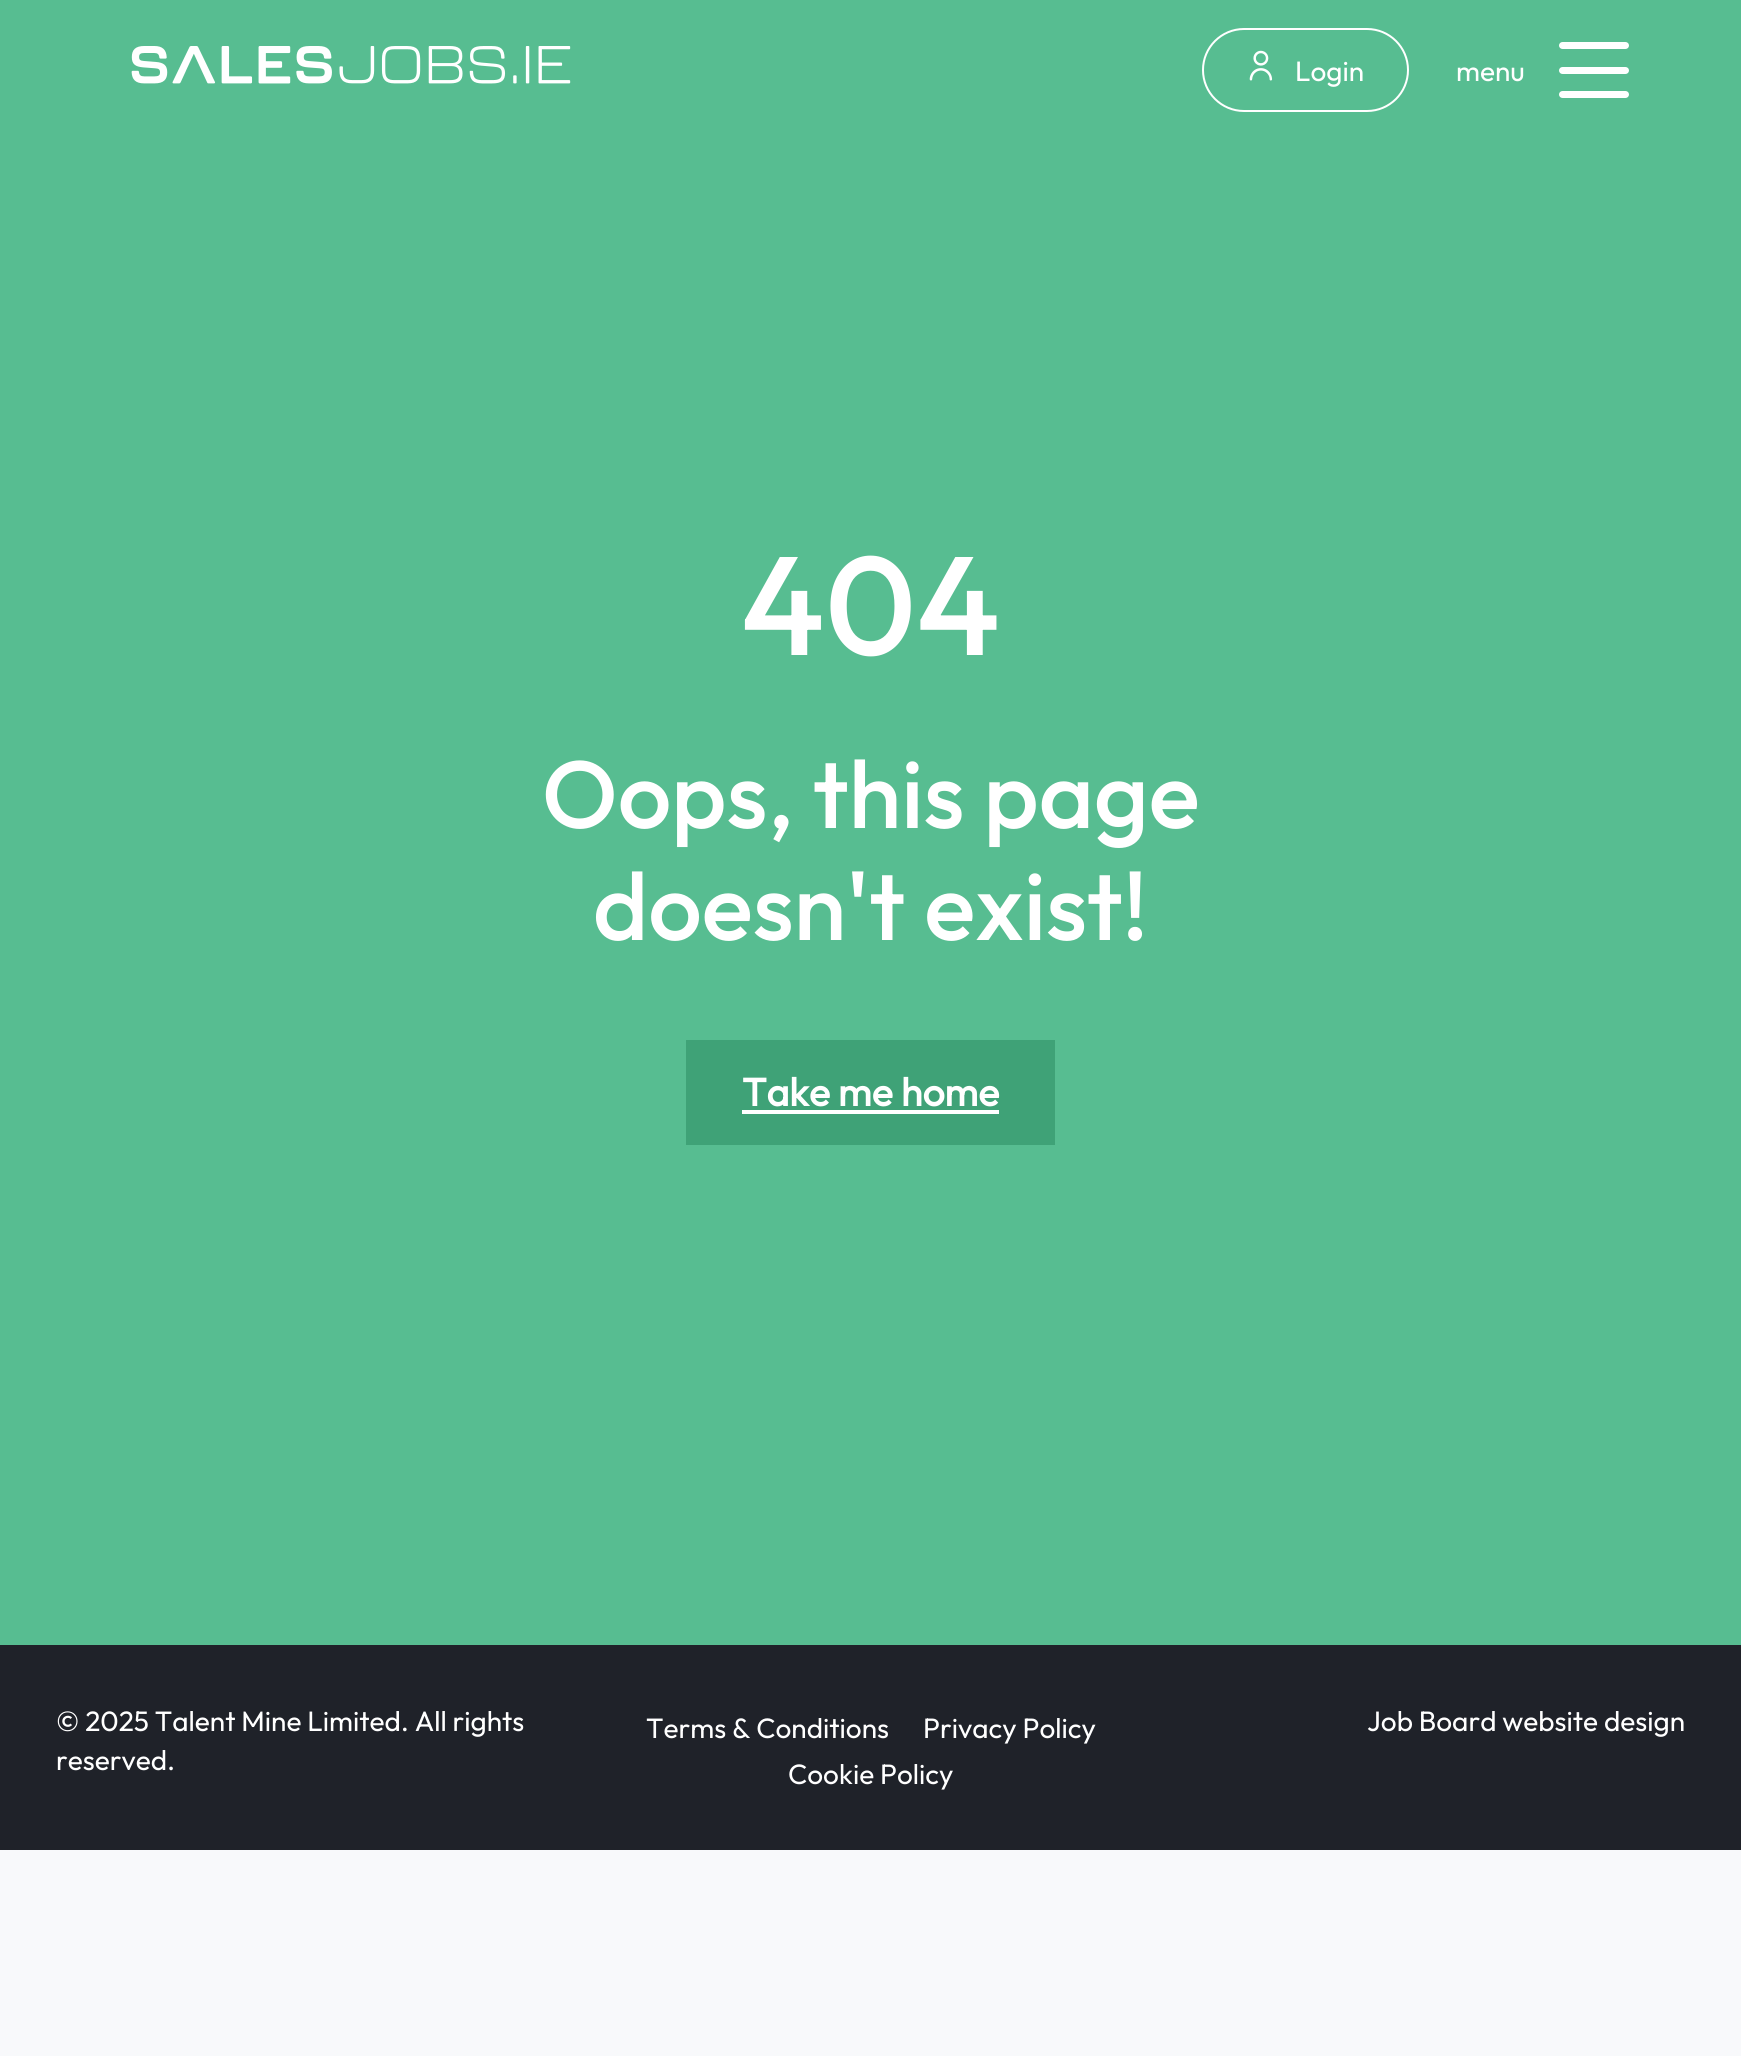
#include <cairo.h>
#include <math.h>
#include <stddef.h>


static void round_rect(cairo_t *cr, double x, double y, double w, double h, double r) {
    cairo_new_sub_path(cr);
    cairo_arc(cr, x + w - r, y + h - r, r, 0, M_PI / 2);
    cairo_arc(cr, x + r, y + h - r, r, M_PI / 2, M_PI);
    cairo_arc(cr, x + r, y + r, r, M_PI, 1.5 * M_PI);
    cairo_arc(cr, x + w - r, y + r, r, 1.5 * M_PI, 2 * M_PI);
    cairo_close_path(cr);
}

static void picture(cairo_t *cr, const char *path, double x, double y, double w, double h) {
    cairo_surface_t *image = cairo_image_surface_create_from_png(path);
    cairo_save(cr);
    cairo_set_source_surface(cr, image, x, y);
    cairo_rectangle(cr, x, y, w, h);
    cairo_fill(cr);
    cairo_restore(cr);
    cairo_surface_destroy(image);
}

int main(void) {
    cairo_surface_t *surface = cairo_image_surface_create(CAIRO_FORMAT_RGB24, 1741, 2056);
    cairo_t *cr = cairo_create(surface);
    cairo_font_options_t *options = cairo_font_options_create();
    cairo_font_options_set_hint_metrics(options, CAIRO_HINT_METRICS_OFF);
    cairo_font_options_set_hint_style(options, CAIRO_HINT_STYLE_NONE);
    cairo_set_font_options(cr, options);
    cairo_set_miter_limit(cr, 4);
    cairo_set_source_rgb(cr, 0.969, 0.976, 0.984);
    cairo_paint(cr);
    cairo_set_source_rgb(cr, 0.341, 0.741, 0.569);
    cairo_rectangle(cr, 0, 0, 1741, 1645);
    cairo_fill(cr);
    picture(cr, "img1.png", 131, 46, 440, 38);
    round_rect(cr, 1203, 29, 205, 82, 41);
    cairo_set_source_rgb(cr, 1, 1, 1);
    cairo_stroke(cr);
    picture(cr, "img2.png", 1249, 50, 24, 31);
    cairo_select_font_face(cr, "Outfit", CAIRO_FONT_SLANT_NORMAL, CAIRO_FONT_WEIGHT_NORMAL);
    cairo_set_font_size(cr, 28);
    cairo_move_to(cr, 1295, 81);
    cairo_show_text(cr, "Login");
    cairo_move_to(cr, 1456, 81);
    cairo_show_text(cr, "menu");
    round_rect(cr, 1559, 42, 70, 7, 3.5);
    cairo_fill(cr);
    round_rect(cr, 1559, 67, 70, 7, 3.5);
    cairo_fill(cr);
    round_rect(cr, 1559, 91, 70, 7, 3.5);
    cairo_fill(cr);
    cairo_select_font_face(cr, "Outfit Medium", CAIRO_FONT_SLANT_NORMAL, CAIRO_FONT_WEIGHT_NORMAL);
    cairo_set_font_size(cr, 140);
    cairo_move_to(cr, 741, 655);
    cairo_show_text(cr, "404");
    cairo_set_font_size(cr, 95.25);
    cairo_move_to(cr, 542, 828);
    cairo_show_text(cr, "Oops, this page");
    cairo_move_to(cr, 593, 940);
    cairo_show_text(cr, "doesn't exist!");
    cairo_set_source_rgb(cr, 0.247, 0.635, 0.467);
    cairo_rectangle(cr, 686, 1040, 369, 105);
    cairo_fill(cr);
    cairo_select_font_face(cr, "Outfit", CAIRO_FONT_SLANT_NORMAL, CAIRO_FONT_WEIGHT_BOLD);
    cairo_set_font_size(cr, 39.25);
    cairo_set_source_rgb(cr, 1, 1, 1);
    cairo_move_to(cr, 742, 1106);
    cairo_show_text(cr, "Take me home");
    cairo_rectangle(cr, 742, 1110, 257, 4);
    cairo_fill(cr);
    cairo_set_source_rgb(cr, 0.122, 0.133, 0.161);
    cairo_rectangle(cr, 0, 1645, 1741, 205);
    cairo_fill(cr);
    cairo_select_font_face(cr, "Outfit", CAIRO_FONT_SLANT_NORMAL, CAIRO_FONT_WEIGHT_NORMAL);
    cairo_set_font_size(cr, 28);
    cairo_set_source_rgb(cr, 1, 1, 1);
    cairo_move_to(cr, 56, 1731);
    cairo_show_text(cr, "© 2025 Talent Mine Limited. All rights");
    cairo_move_to(cr, 56, 1770);
    cairo_show_text(cr, "reserved.");
    cairo_move_to(cr, 646, 1738);
    cairo_show_text(cr, "Terms & Conditions");
    cairo_move_to(cr, 923, 1738);
    cairo_show_text(cr, "Privacy Policy");
    cairo_move_to(cr, 788, 1784);
    cairo_show_text(cr, "Cookie Policy");
    cairo_move_to(cr, 1367, 1731);
    cairo_show_text(cr, "Job Board website design");
    cairo_surface_write_to_png(surface, "page.png");
    cairo_font_options_destroy(options);
    cairo_destroy(cr);
    cairo_surface_destroy(surface);
    return 0;
}
